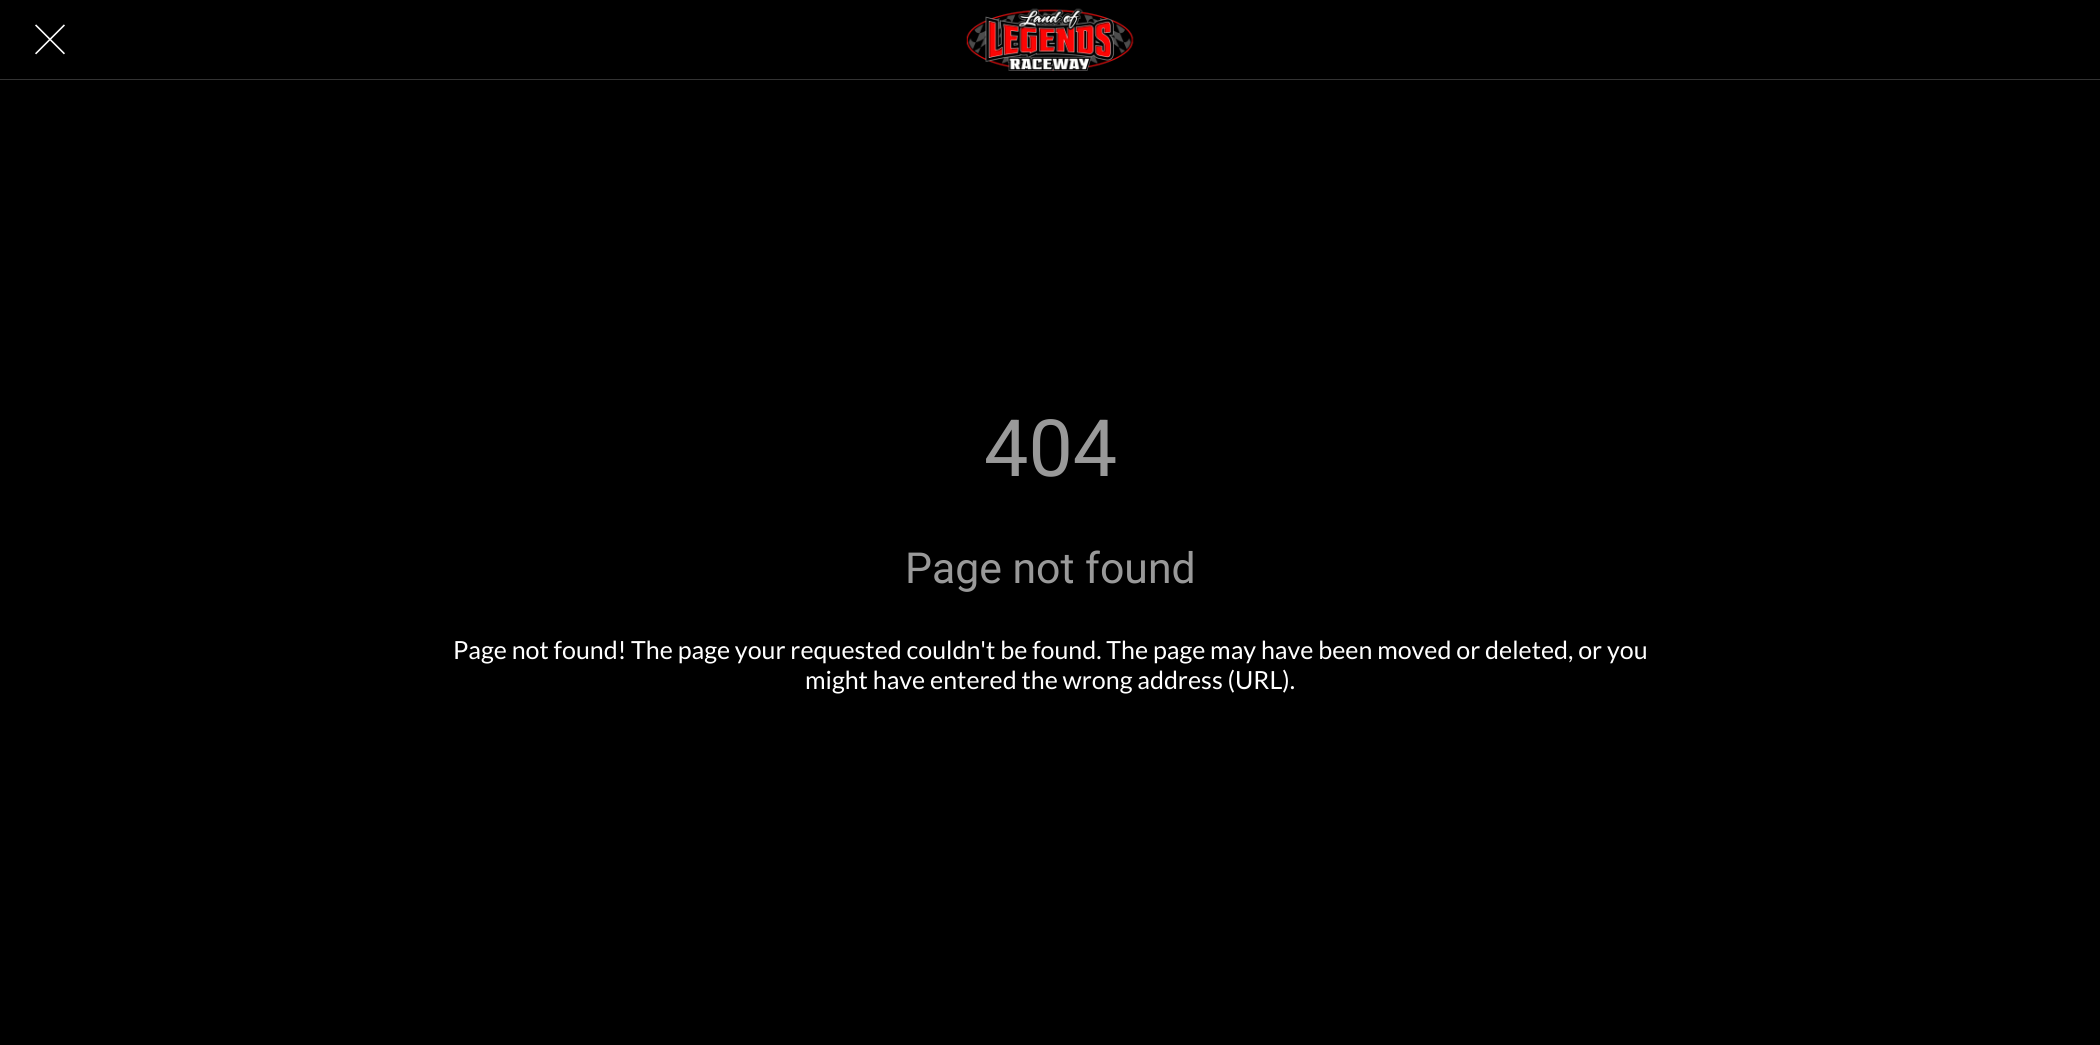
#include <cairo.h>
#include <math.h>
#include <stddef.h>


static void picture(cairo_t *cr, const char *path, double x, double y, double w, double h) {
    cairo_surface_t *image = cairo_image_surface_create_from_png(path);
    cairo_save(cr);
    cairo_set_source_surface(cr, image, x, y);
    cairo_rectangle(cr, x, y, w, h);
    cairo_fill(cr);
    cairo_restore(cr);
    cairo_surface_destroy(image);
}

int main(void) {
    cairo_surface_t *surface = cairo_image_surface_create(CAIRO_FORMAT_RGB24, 2100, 1045);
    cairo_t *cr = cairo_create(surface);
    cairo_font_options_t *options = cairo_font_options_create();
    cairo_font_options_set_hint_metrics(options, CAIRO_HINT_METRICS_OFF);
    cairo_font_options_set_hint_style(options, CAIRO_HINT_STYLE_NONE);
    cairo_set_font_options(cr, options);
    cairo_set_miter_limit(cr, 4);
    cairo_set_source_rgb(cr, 0, 0, 0);
    cairo_paint(cr);
    cairo_set_source_rgb(cr, 0.2, 0.2, 0.2);
    cairo_rectangle(cr, 0, 79, 2100, 1);
    cairo_fill(cr);
    picture(cr, "img1.png", 35, 24, 30, 31);
    picture(cr, "img2.png", 966, 8, 168, 63);
    cairo_select_font_face(cr, "Roboto", CAIRO_FONT_SLANT_NORMAL, CAIRO_FONT_WEIGHT_NORMAL);
    cairo_set_font_size(cr, 79);
    cairo_set_source_rgb(cr, 0.6, 0.6, 0.6);
    cairo_move_to(cr, 984, 476);
    cairo_show_text(cr, "404");
    cairo_set_font_size(cr, 42.75);
    cairo_move_to(cr, 905, 583);
    cairo_show_text(cr, "Page not found");
    cairo_select_font_face(cr, "Lato", CAIRO_FONT_SLANT_NORMAL, CAIRO_FONT_WEIGHT_NORMAL);
    cairo_set_font_size(cr, 25);
    cairo_set_source_rgb(cr, 1, 1, 1);
    cairo_move_to(cr, 453, 659);
    cairo_show_text(cr, "Page not found! The page your requested couldn't be found. The page may have been moved or deleted, or you");
    cairo_move_to(cr, 805, 689);
    cairo_show_text(cr, "might have entered the wrong address (URL).");
    cairo_surface_write_to_png(surface, "page.png");
    cairo_font_options_destroy(options);
    cairo_destroy(cr);
    cairo_surface_destroy(surface);
    return 0;
}
